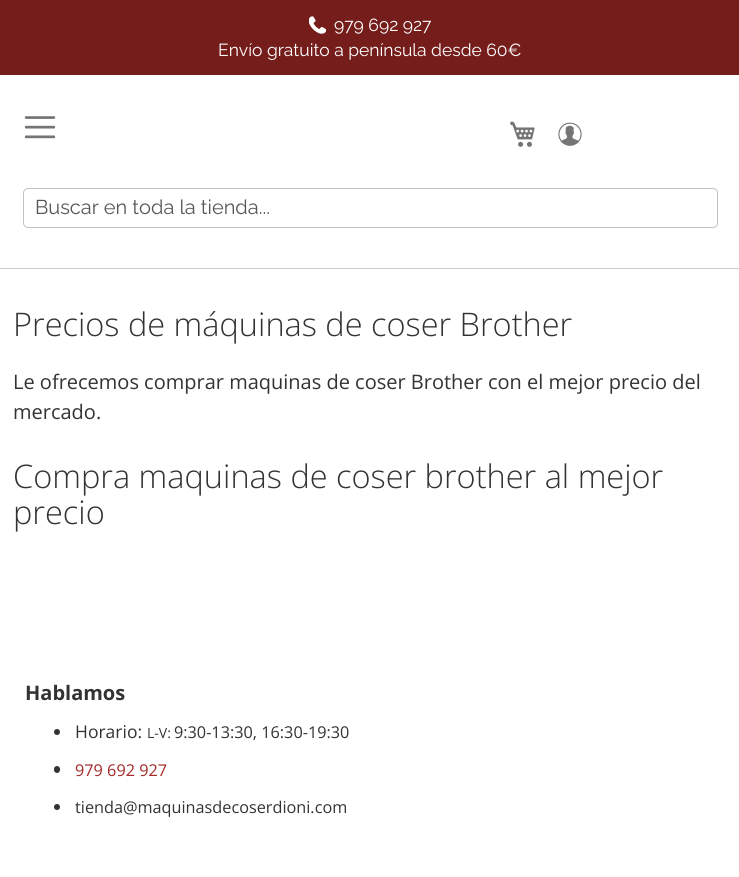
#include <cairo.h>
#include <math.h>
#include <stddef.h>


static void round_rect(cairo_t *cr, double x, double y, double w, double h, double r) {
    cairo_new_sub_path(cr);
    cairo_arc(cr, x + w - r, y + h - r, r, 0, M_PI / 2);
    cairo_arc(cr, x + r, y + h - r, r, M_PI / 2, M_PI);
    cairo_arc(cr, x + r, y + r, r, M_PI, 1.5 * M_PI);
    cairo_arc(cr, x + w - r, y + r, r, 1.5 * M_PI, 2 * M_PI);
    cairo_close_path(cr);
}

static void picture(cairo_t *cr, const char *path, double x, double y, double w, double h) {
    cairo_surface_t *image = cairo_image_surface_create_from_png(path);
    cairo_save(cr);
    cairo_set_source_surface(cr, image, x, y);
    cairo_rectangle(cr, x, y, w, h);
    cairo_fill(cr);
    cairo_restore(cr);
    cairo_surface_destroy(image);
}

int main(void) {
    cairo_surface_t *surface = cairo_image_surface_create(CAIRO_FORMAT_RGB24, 739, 877);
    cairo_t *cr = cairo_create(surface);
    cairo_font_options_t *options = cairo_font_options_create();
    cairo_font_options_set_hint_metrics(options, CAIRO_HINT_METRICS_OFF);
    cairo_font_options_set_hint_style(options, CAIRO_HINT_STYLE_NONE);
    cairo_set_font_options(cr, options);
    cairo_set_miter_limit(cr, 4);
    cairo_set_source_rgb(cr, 1, 1, 1);
    cairo_paint(cr);
    cairo_set_source_rgb(cr, 0.8, 0.8, 0.8);
    cairo_rectangle(cr, 0, 268, 739, 1);
    cairo_fill(cr);
    cairo_set_source_rgb(cr, 0.455, 0.114, 0.106);
    cairo_rectangle(cr, 0, 0, 739, 75);
    cairo_fill(cr);
    picture(cr, "img1.png", 309, 16, 17, 18);
    cairo_select_font_face(cr, "Raleway", CAIRO_FONT_SLANT_NORMAL, CAIRO_FONT_WEIGHT_NORMAL);
    cairo_set_font_size(cr, 17.5);
    cairo_set_source_rgb(cr, 1, 1, 1);
    cairo_move_to(cr, 334, 31);
    cairo_show_text(cr, "979 692 927");
    cairo_move_to(cr, 218, 56);
    cairo_show_text(cr, "Envío gratuito a península desde 60€");
    picture(cr, "img2.png", 24, 116, 32, 23);
    picture(cr, "img3.png", 510, 121, 25, 26);
    picture(cr, "img4.png", 558, 122, 24, 24);
    round_rect(cr, 23.5, 188.5, 694, 39, 4.5);
    cairo_set_source_rgb(cr, 0.761, 0.761, 0.761);
    cairo_set_line_width(cr, 1);
    cairo_stroke(cr);
    cairo_set_font_size(cr, 20);
    cairo_set_source_rgb(cr, 0.341, 0.341, 0.341);
    cairo_move_to(cr, 35, 214);
    cairo_show_text(cr, "Buscar en toda la tienda...");
    cairo_select_font_face(cr, "Open Sans Light", CAIRO_FONT_SLANT_NORMAL, CAIRO_FONT_WEIGHT_NORMAL);
    cairo_set_font_size(cr, 32.5);
    cairo_set_source_rgb(cr, 0.2, 0.2, 0.2);
    cairo_move_to(cr, 13, 336);
    cairo_show_text(cr, "Precios de máquinas de coser Brother");
    cairo_select_font_face(cr, "Open Sans", CAIRO_FONT_SLANT_NORMAL, CAIRO_FONT_WEIGHT_NORMAL);
    cairo_set_font_size(cr, 20);
    cairo_move_to(cr, 13, 389);
    cairo_show_text(cr, "Le ofrecemos comprar maquinas de coser Brother con el mejor precio del");
    cairo_move_to(cr, 13, 419);
    cairo_show_text(cr, "mercado.");
    cairo_select_font_face(cr, "Open Sans Light", CAIRO_FONT_SLANT_NORMAL, CAIRO_FONT_WEIGHT_NORMAL);
    cairo_set_font_size(cr, 32.5);
    cairo_move_to(cr, 13, 488);
    cairo_show_text(cr, "Compra maquinas de coser brother al mejor");
    cairo_move_to(cr, 13, 524);
    cairo_show_text(cr, "precio");
    cairo_select_font_face(cr, "Open Sans", CAIRO_FONT_SLANT_NORMAL, CAIRO_FONT_WEIGHT_BOLD);
    cairo_set_font_size(cr, 20);
    cairo_move_to(cr, 25, 700);
    cairo_show_text(cr, "Hablamos");
    cairo_new_path(cr);
    cairo_arc(cr, 57, 732, 3, 0, 2 * M_PI);
    cairo_fill(cr);
    cairo_select_font_face(cr, "Open Sans", CAIRO_FONT_SLANT_NORMAL, CAIRO_FONT_WEIGHT_NORMAL);
    cairo_set_font_size(cr, 17.5);
    cairo_move_to(cr, 75, 738);
    cairo_show_text(cr, "Horario:");
    cairo_set_font_size(cr, 14);
    cairo_move_to(cr, 147, 738);
    cairo_show_text(cr, "L-V:");
    cairo_set_font_size(cr, 16.25);
    cairo_move_to(cr, 174, 738);
    cairo_show_text(cr, "9:30-13:30, 16:30-19:30");
    round_rect(cr, 54, 766, 6, 7, 3);
    cairo_fill(cr);
    cairo_set_source_rgb(cr, 0.643, 0.161, 0.153);
    cairo_move_to(cr, 75, 776);
    cairo_show_text(cr, "979 692 927");
    cairo_set_source_rgb(cr, 0.2, 0.2, 0.2);
    cairo_new_path(cr);
    cairo_arc(cr, 57, 807, 3, 0, 2 * M_PI);
    cairo_fill(cr);
    cairo_move_to(cr, 75, 813);
    cairo_show_text(cr, "tienda@maquinasdecoserdioni.com");
    cairo_surface_write_to_png(surface, "page.png");
    cairo_font_options_destroy(options);
    cairo_destroy(cr);
    cairo_surface_destroy(surface);
    return 0;
}
